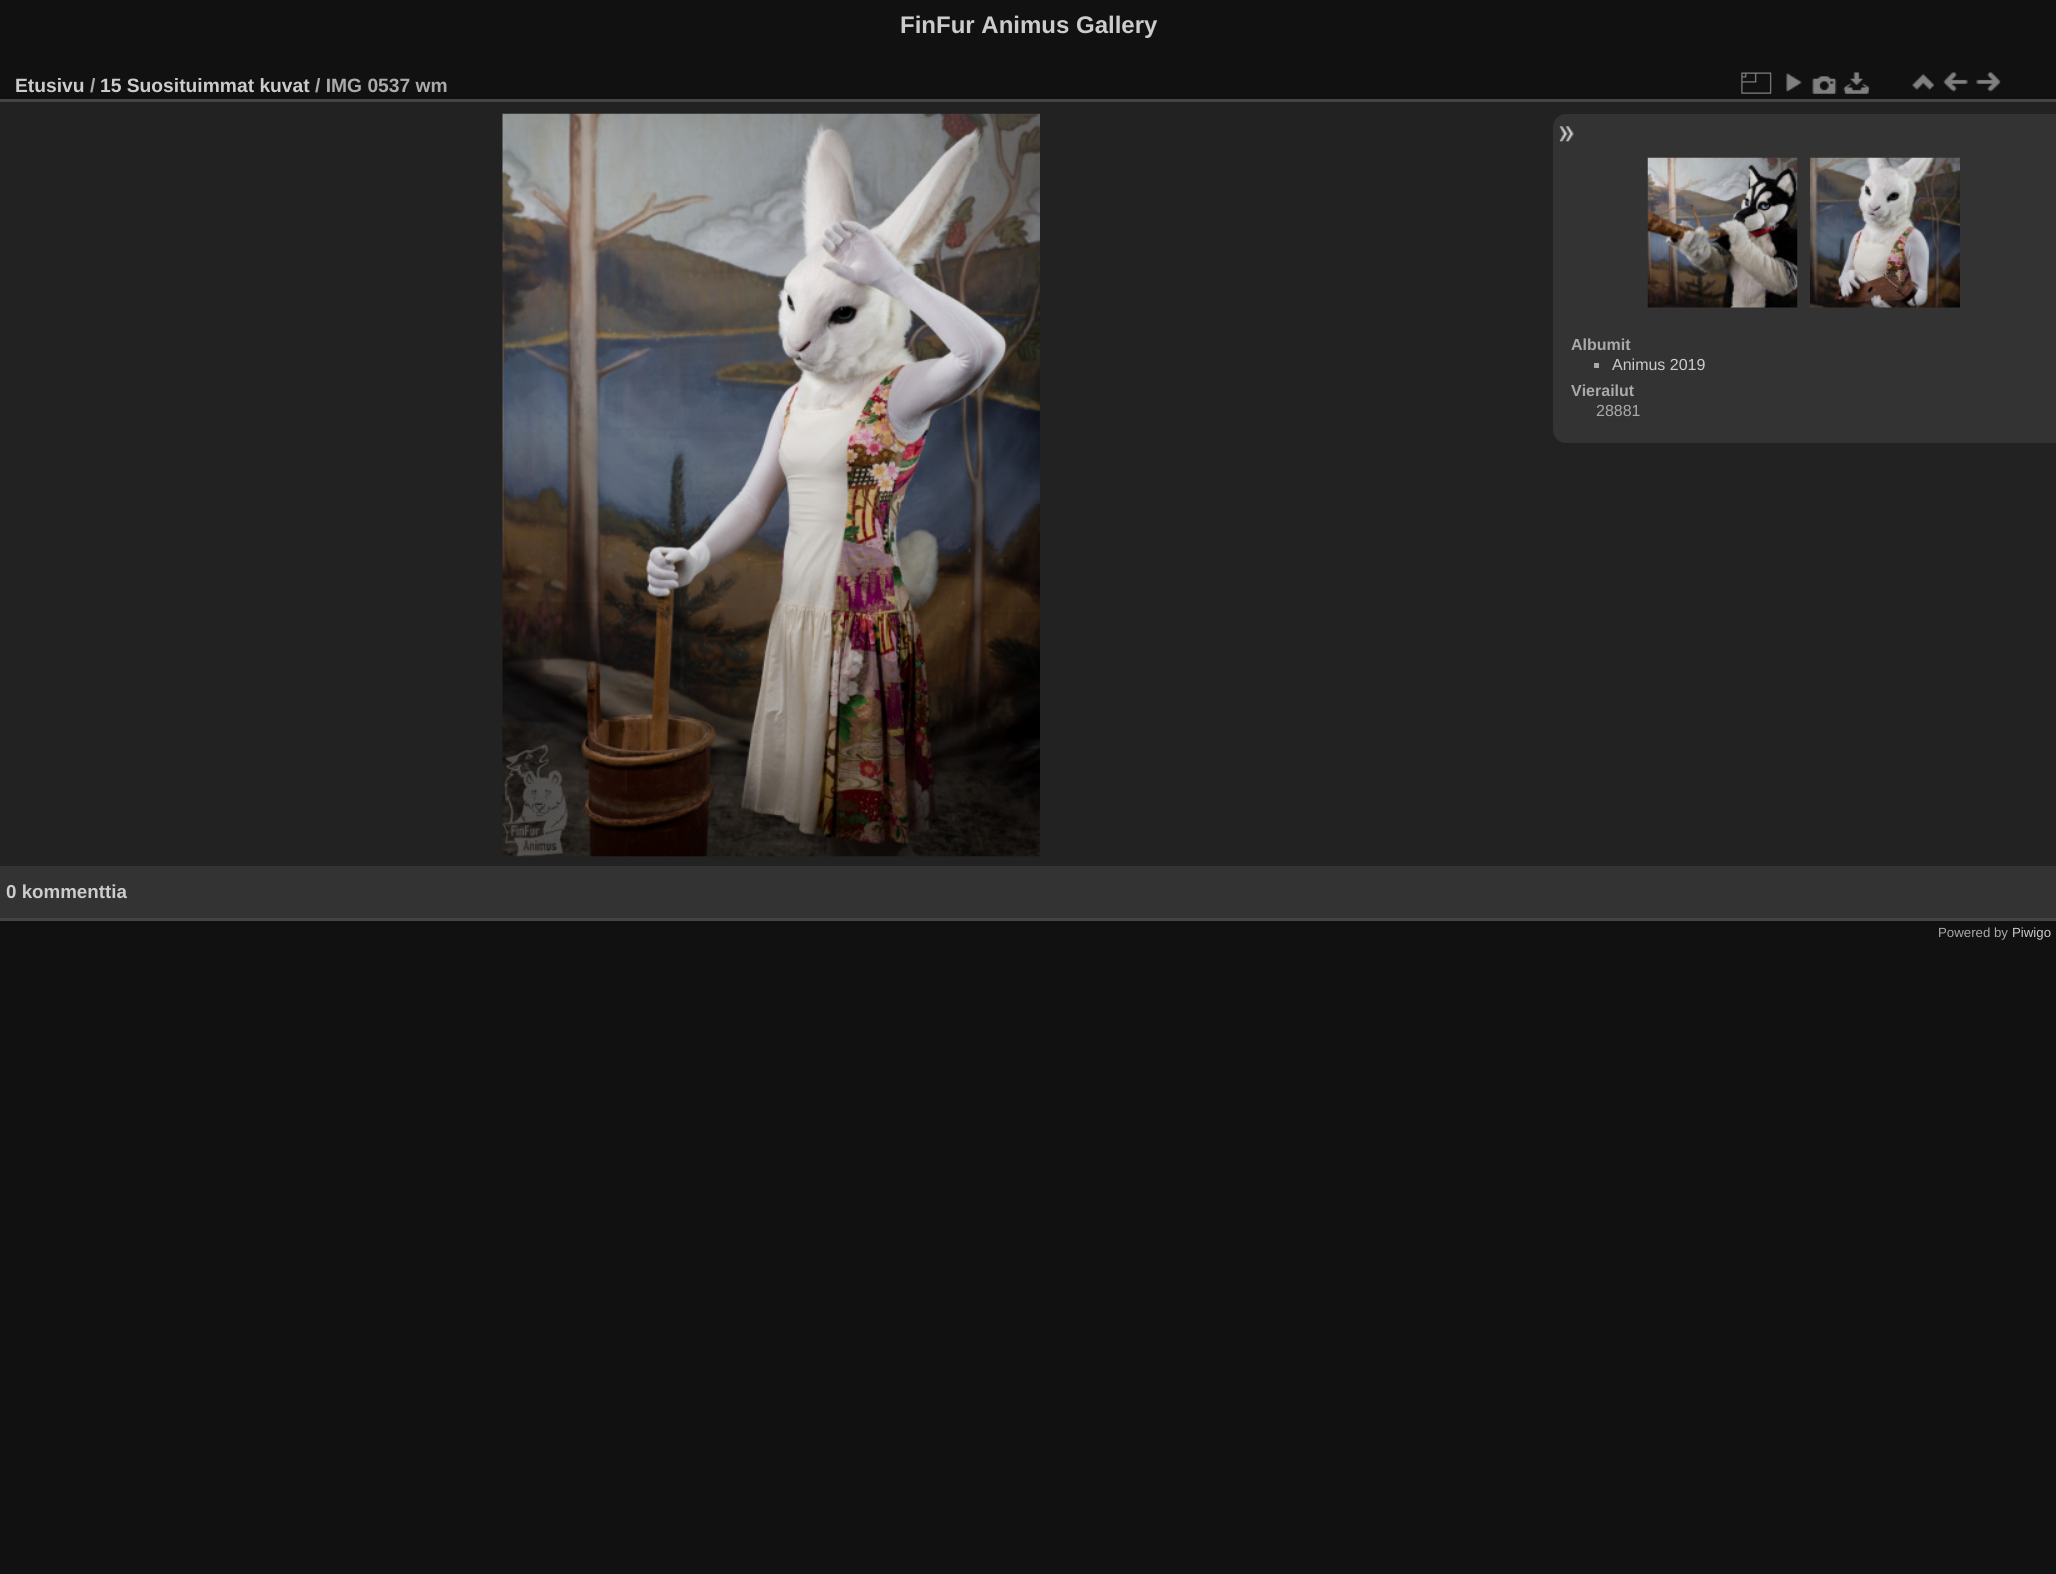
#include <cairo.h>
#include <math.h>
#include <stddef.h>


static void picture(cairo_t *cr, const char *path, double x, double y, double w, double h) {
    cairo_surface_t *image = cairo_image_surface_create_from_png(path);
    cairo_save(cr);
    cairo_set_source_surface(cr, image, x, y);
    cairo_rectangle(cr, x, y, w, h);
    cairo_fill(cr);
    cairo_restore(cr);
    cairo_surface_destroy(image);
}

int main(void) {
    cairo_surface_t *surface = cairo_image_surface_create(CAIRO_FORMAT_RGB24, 2056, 1574);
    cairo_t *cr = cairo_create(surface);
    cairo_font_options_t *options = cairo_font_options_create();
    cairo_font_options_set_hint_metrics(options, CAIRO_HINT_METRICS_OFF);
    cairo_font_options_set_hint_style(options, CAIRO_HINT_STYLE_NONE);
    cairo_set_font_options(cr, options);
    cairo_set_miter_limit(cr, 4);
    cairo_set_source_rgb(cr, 0.067, 0.067, 0.067);
    cairo_paint(cr);
    cairo_select_font_face(cr, "Liberation Sans", CAIRO_FONT_SLANT_NORMAL, CAIRO_FONT_WEIGHT_BOLD);
    cairo_set_font_size(cr, 24);
    cairo_set_source_rgb(cr, 0.8, 0.8, 0.8);
    cairo_move_to(cr, 900, 33);
    cairo_show_text(cr, "FinFur Animus Gallery");
    cairo_set_source_rgb(cr, 0.133, 0.133, 0.133);
    cairo_rectangle(cr, 0, 102, 2056, 764);
    cairo_fill(cr);
    cairo_set_source_rgb(cr, 0.267, 0.267, 0.267);
    cairo_rectangle(cr, 0, 918, 2056, 3);
    cairo_fill(cr);
    cairo_rectangle(cr, 0, 99, 2056, 3);
    cairo_fill(cr);
    cairo_set_font_size(cr, 19.25);
    cairo_set_source_rgb(cr, 0.8, 0.8, 0.8);
    cairo_move_to(cr, 15, 92);
    cairo_show_text(cr, "Etusivu");
    cairo_set_source_rgb(cr, 0.667, 0.667, 0.667);
    cairo_move_to(cr, 90, 92);
    cairo_show_text(cr, "/");
    cairo_set_source_rgb(cr, 0.8, 0.8, 0.8);
    cairo_move_to(cr, 100, 92);
    cairo_show_text(cr, "15 Suosituimmat kuvat");
    cairo_set_source_rgb(cr, 0.667, 0.667, 0.667);
    cairo_move_to(cr, 315, 92);
    cairo_show_text(cr, "/ IMG 0537 wm");
    picture(cr, "img1.png", 1741, 72, 31, 22);
    picture(cr, "img2.png", 1786, 73, 16, 19);
    picture(cr, "img3.png", 1812, 76, 25, 18);
    picture(cr, "img4.png", 1843, 72, 27, 22);
    picture(cr, "img5.png", 1912, 73, 22, 18);
    picture(cr, "img6.png", 1943, 72, 25, 20);
    picture(cr, "img7.png", 1976, 72, 25, 20);
    picture(cr, "img8.png", 502, 113, 538, 744);
    cairo_set_source_rgb(cr, 0.2, 0.2, 0.2);
    cairo_new_path(cr);
    cairo_move_to(cr, 1566, 114);
    cairo_line_to(cr, 2056, 114);
    cairo_line_to(cr, 2056, 443);
    cairo_line_to(cr, 1566, 443);
    cairo_curve_to(cr, 1559, 443, 1553, 437, 1553, 430);
    cairo_line_to(cr, 1553, 127);
    cairo_curve_to(cr, 1553, 120, 1559, 114, 1566, 114);
    cairo_close_path(cr);
    cairo_fill(cr);
    picture(cr, "img9.png", 1559, 126, 15, 16);
    picture(cr, "img10.png", 1647, 157, 151, 151);
    picture(cr, "img11.png", 1810, 157, 150, 151);
    cairo_set_font_size(cr, 16);
    cairo_set_source_rgb(cr, 0.667, 0.667, 0.667);
    cairo_move_to(cr, 1571, 350);
    cairo_show_text(cr, "Albumit");
    cairo_rectangle(cr, 1594, 363, 5, 5);
    cairo_fill(cr);
    cairo_select_font_face(cr, "Liberation Sans", CAIRO_FONT_SLANT_NORMAL, CAIRO_FONT_WEIGHT_NORMAL);
    cairo_set_source_rgb(cr, 0.8, 0.8, 0.8);
    cairo_move_to(cr, 1612, 370);
    cairo_show_text(cr, "Animus 2019");
    cairo_select_font_face(cr, "Liberation Sans", CAIRO_FONT_SLANT_NORMAL, CAIRO_FONT_WEIGHT_BOLD);
    cairo_set_source_rgb(cr, 0.667, 0.667, 0.667);
    cairo_move_to(cr, 1571, 396);
    cairo_show_text(cr, "Vierailut");
    cairo_select_font_face(cr, "Liberation Sans", CAIRO_FONT_SLANT_NORMAL, CAIRO_FONT_WEIGHT_NORMAL);
    cairo_move_to(cr, 1596, 416);
    cairo_show_text(cr, "28881");
    cairo_set_source_rgb(cr, 0.2, 0.2, 0.2);
    cairo_rectangle(cr, 0, 866, 2056, 52);
    cairo_fill(cr);
    cairo_select_font_face(cr, "Liberation Sans", CAIRO_FONT_SLANT_NORMAL, CAIRO_FONT_WEIGHT_BOLD);
    cairo_set_font_size(cr, 18.75);
    cairo_set_source_rgb(cr, 0.8, 0.8, 0.8);
    cairo_move_to(cr, 6, 898);
    cairo_show_text(cr, "0 kommenttia");
    cairo_select_font_face(cr, "Liberation Sans", CAIRO_FONT_SLANT_NORMAL, CAIRO_FONT_WEIGHT_NORMAL);
    cairo_set_font_size(cr, 13.25);
    cairo_set_source_rgb(cr, 0.667, 0.667, 0.667);
    cairo_move_to(cr, 1938, 937);
    cairo_show_text(cr, "Powered by");
    cairo_set_source_rgb(cr, 0.8, 0.8, 0.8);
    cairo_move_to(cr, 2012, 937);
    cairo_show_text(cr, "Piwigo");
    cairo_surface_write_to_png(surface, "page.png");
    cairo_font_options_destroy(options);
    cairo_destroy(cr);
    cairo_surface_destroy(surface);
    return 0;
}
